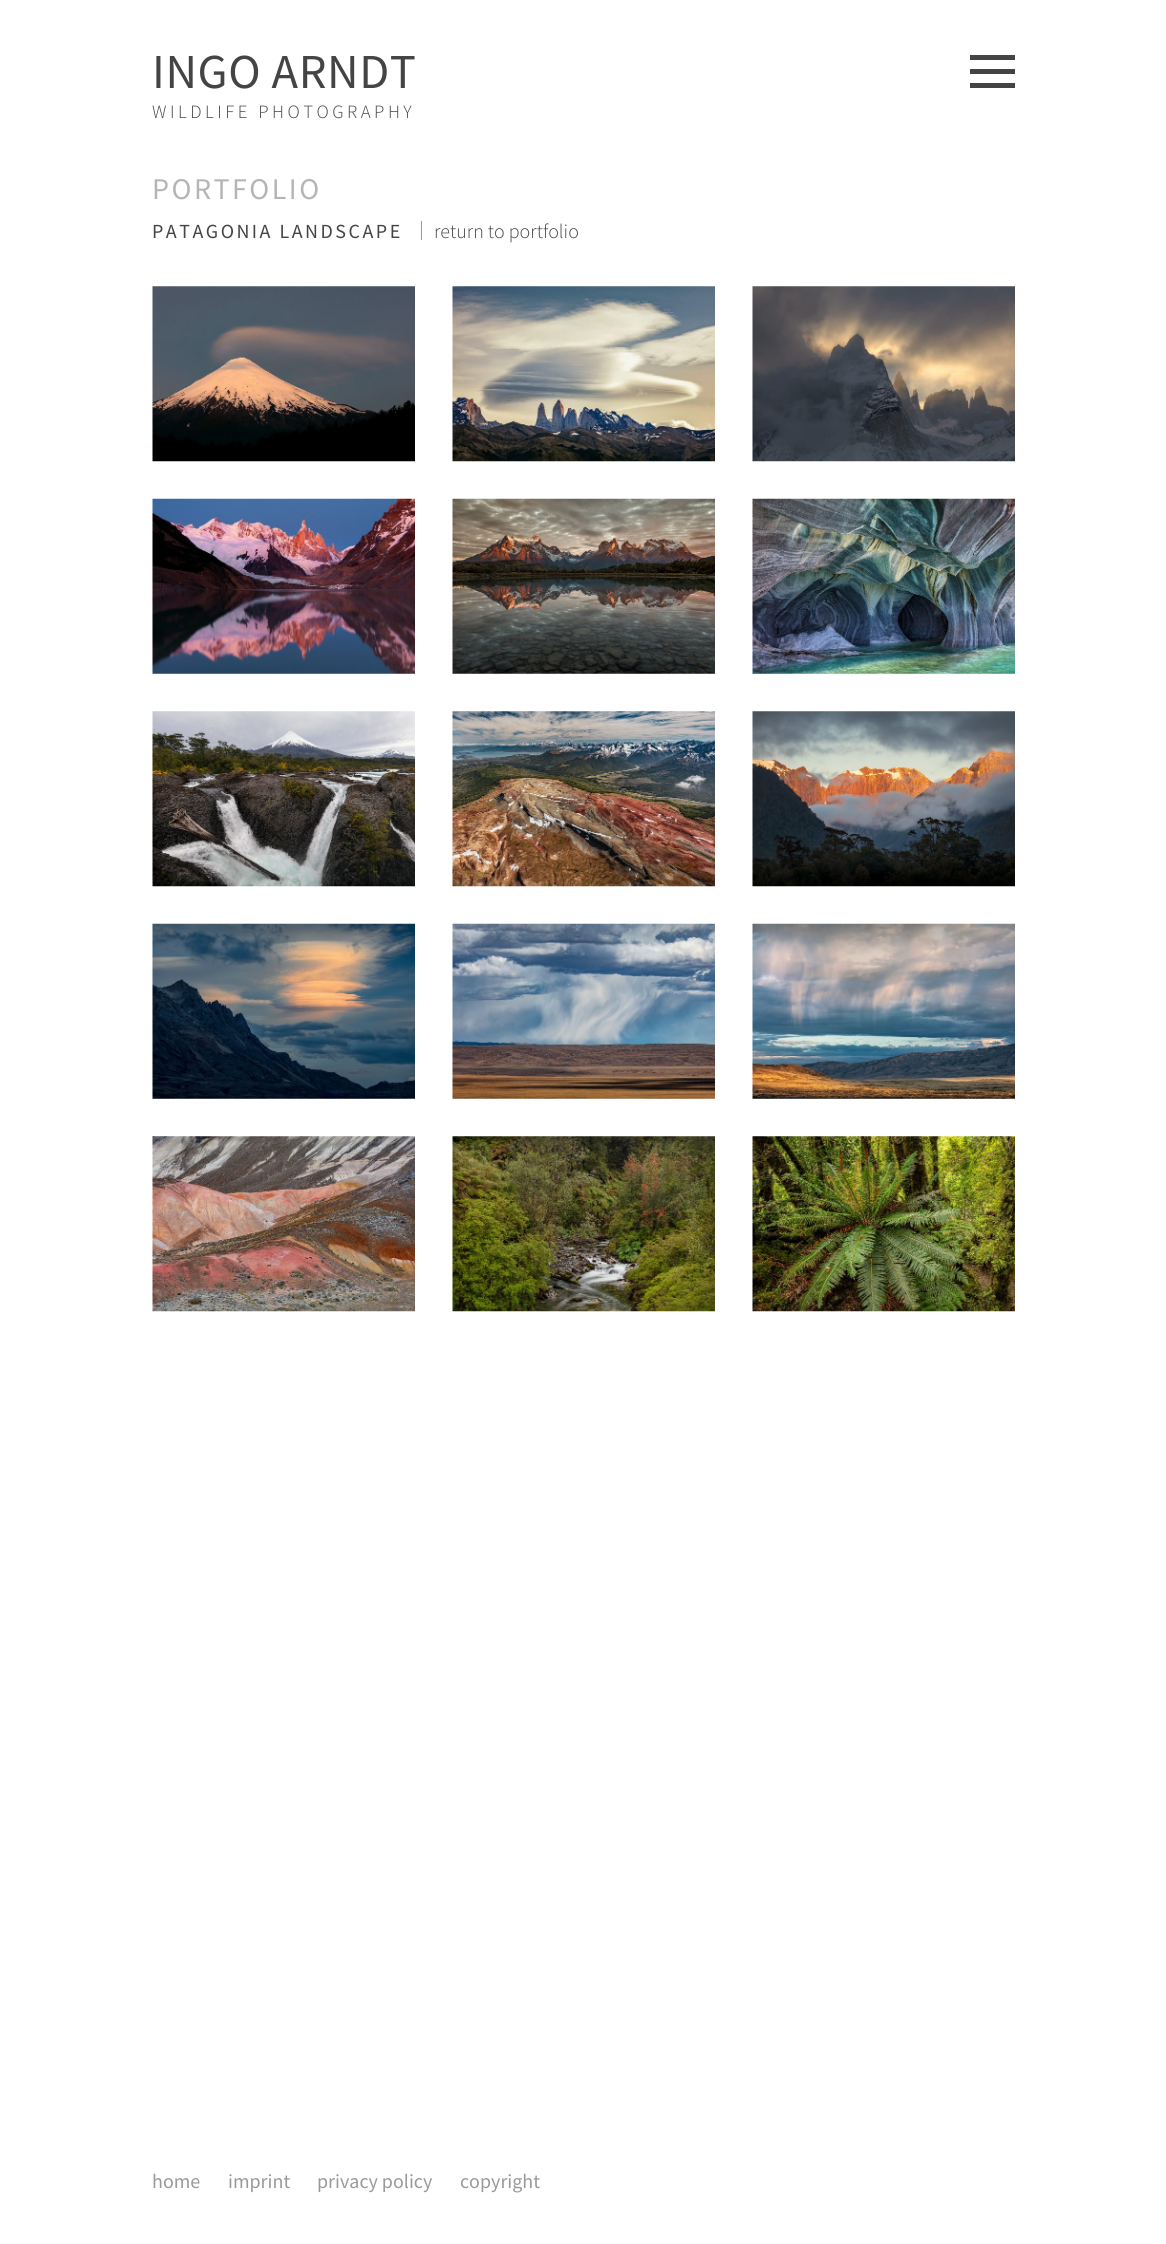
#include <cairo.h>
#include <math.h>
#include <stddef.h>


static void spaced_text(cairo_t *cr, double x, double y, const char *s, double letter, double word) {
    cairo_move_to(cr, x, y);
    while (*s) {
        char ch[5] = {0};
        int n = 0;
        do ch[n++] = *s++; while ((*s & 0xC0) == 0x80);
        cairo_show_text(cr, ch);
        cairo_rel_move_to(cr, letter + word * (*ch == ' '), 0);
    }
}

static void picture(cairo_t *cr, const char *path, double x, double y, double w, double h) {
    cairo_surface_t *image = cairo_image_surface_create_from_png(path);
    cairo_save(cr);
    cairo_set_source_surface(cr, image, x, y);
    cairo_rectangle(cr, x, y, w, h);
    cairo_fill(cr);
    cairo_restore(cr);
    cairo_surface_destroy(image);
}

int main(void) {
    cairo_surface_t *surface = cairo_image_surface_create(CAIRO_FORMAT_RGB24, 1166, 2244);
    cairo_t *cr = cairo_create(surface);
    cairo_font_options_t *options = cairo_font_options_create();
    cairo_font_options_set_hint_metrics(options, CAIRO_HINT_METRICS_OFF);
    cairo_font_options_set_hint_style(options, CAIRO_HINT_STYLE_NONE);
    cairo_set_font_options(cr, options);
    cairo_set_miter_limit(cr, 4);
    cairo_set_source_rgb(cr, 1, 1, 1);
    cairo_paint(cr);
    cairo_select_font_face(cr, "Source Sans Pro", CAIRO_FONT_SLANT_NORMAL, CAIRO_FONT_WEIGHT_NORMAL);
    cairo_set_font_size(cr, 48.75);
    cairo_set_source_rgb(cr, 0.267, 0.267, 0.267);
    spaced_text(cr, 152, 88, "INGO ARNDT", 0.6, 0);
    cairo_select_font_face(cr, "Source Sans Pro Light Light", CAIRO_FONT_SLANT_NORMAL, CAIRO_FONT_WEIGHT_NORMAL);
    cairo_set_font_size(cr, 18.75);
    spaced_text(cr, 152, 118, "WILDLIFE PHOTOGRAPHY", 3.5, 0);
    cairo_rectangle(cr, 970, 55, 45, 5);
    cairo_fill(cr);
    cairo_rectangle(cr, 970, 69, 45, 5);
    cairo_fill(cr);
    cairo_rectangle(cr, 970, 83, 45, 5);
    cairo_fill(cr);
    cairo_select_font_face(cr, "Source Sans Pro", CAIRO_FONT_SLANT_NORMAL, CAIRO_FONT_WEIGHT_NORMAL);
    cairo_set_font_size(cr, 30);
    cairo_set_source_rgb(cr, 0.71, 0.71, 0.71);
    spaced_text(cr, 152, 199, "PORTFOLIO", 2.5, 0);
    cairo_set_font_size(cr, 20);
    cairo_set_source_rgb(cr, 0.267, 0.267, 0.267);
    spaced_text(cr, 152, 238, "PATAGONIA LANDSCAPE", 2.5, 0);
    cairo_set_source_rgb(cr, 0.6, 0.6, 0.6);
    cairo_rectangle(cr, 421, 221, 1, 19);
    cairo_fill(cr);
    cairo_select_font_face(cr, "Source Sans Pro Light Light", CAIRO_FONT_SLANT_NORMAL, CAIRO_FONT_WEIGHT_NORMAL);
    cairo_set_source_rgb(cr, 0.267, 0.267, 0.267);
    cairo_move_to(cr, 434, 238);
    cairo_show_text(cr, "return to portfolio");
    picture(cr, "img1.png", 152, 286, 263, 176);
    picture(cr, "img2.png", 452, 286, 263, 176);
    picture(cr, "img3.png", 752, 286, 263, 176);
    picture(cr, "img4.png", 152, 498, 263, 176);
    picture(cr, "img5.png", 452, 498, 263, 176);
    picture(cr, "img6.png", 752, 498, 263, 176);
    picture(cr, "img7.png", 152, 711, 263, 176);
    picture(cr, "img8.png", 452, 711, 263, 176);
    picture(cr, "img9.png", 752, 711, 263, 176);
    picture(cr, "img10.png", 152, 923, 263, 176);
    picture(cr, "img11.png", 452, 923, 263, 176);
    picture(cr, "img12.png", 752, 923, 263, 176);
    picture(cr, "img13.png", 152, 1136, 263, 176);
    picture(cr, "img14.png", 452, 1136, 263, 176);
    picture(cr, "img15.png", 752, 1136, 263, 176);
    cairo_select_font_face(cr, "Source Sans Pro", CAIRO_FONT_SLANT_NORMAL, CAIRO_FONT_WEIGHT_NORMAL);
    cairo_set_source_rgb(cr, 0.6, 0.6, 0.6);
    cairo_move_to(cr, 152, 2188);
    cairo_show_text(cr, "home");
    cairo_move_to(cr, 228, 2188);
    cairo_show_text(cr, "imprint");
    cairo_move_to(cr, 317, 2188);
    cairo_show_text(cr, "privacy policy");
    cairo_move_to(cr, 460, 2188);
    cairo_show_text(cr, "copyright");
    cairo_surface_write_to_png(surface, "page.png");
    cairo_font_options_destroy(options);
    cairo_destroy(cr);
    cairo_surface_destroy(surface);
    return 0;
}
